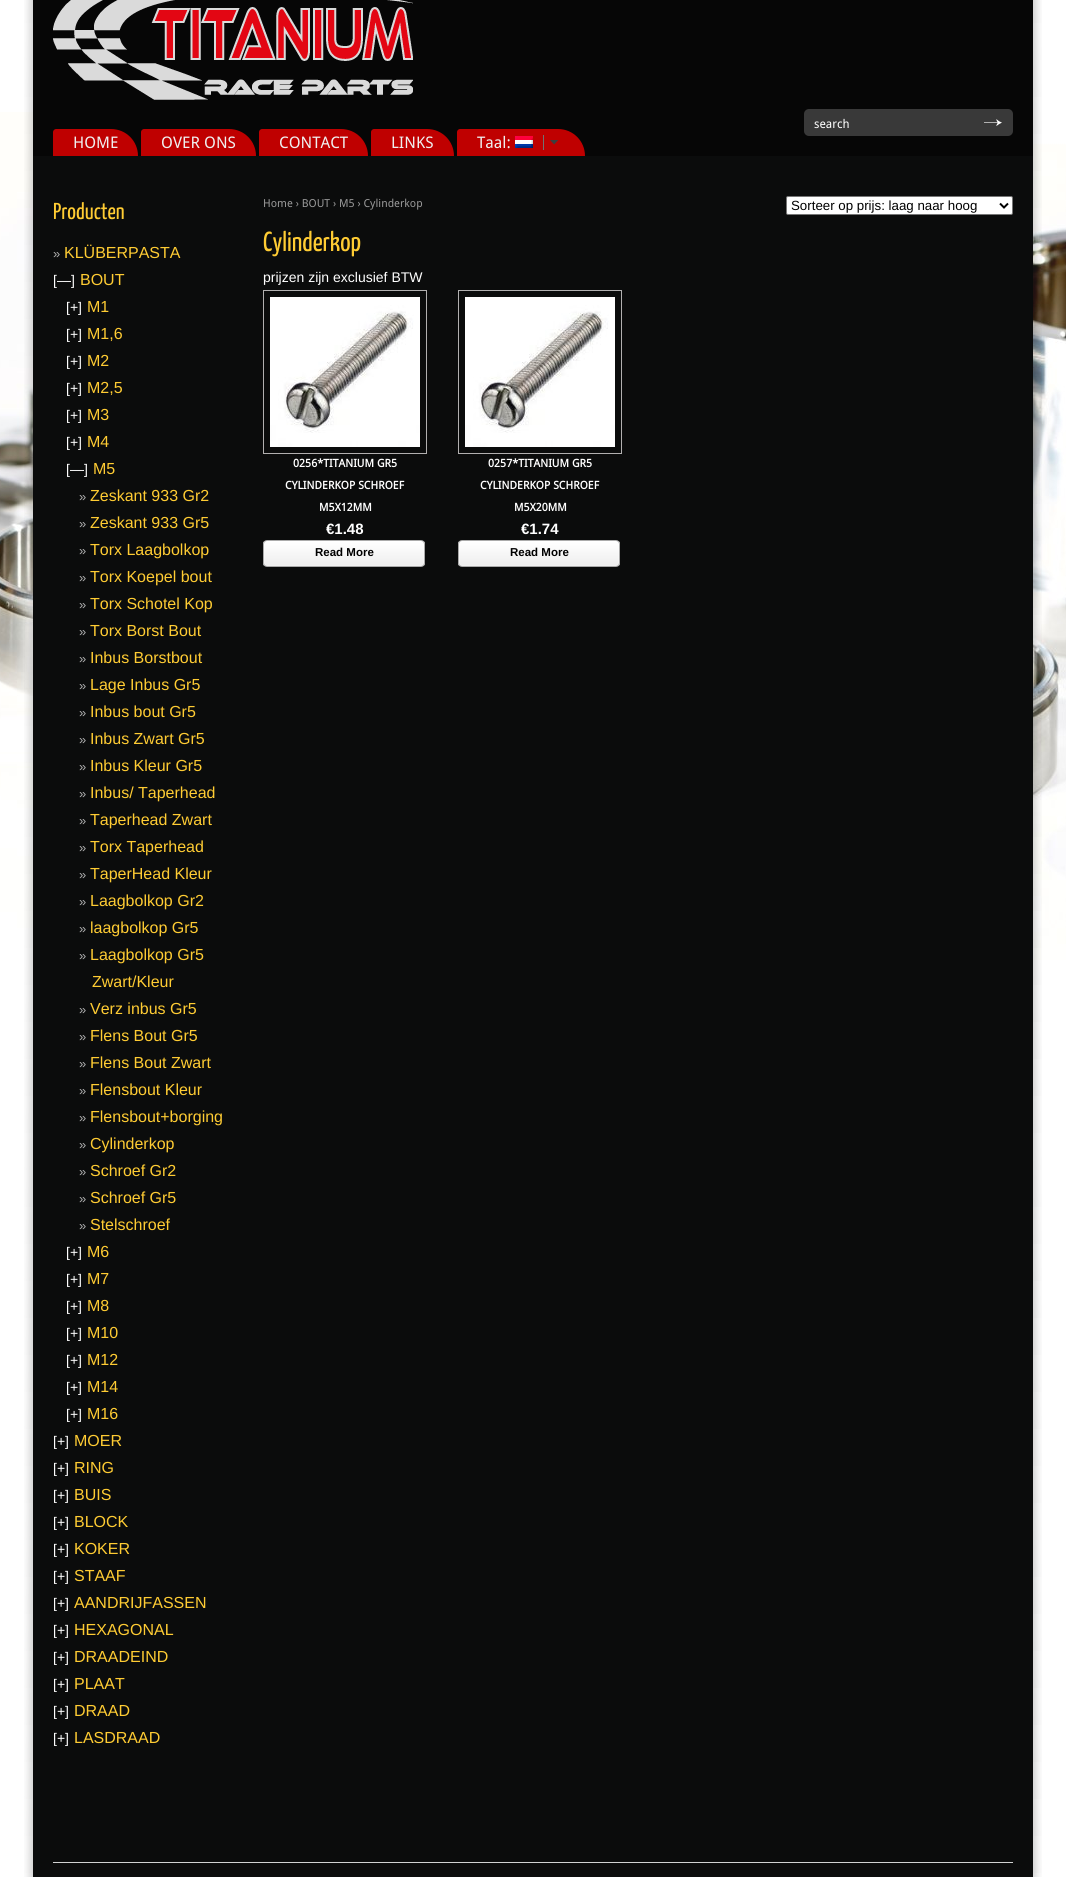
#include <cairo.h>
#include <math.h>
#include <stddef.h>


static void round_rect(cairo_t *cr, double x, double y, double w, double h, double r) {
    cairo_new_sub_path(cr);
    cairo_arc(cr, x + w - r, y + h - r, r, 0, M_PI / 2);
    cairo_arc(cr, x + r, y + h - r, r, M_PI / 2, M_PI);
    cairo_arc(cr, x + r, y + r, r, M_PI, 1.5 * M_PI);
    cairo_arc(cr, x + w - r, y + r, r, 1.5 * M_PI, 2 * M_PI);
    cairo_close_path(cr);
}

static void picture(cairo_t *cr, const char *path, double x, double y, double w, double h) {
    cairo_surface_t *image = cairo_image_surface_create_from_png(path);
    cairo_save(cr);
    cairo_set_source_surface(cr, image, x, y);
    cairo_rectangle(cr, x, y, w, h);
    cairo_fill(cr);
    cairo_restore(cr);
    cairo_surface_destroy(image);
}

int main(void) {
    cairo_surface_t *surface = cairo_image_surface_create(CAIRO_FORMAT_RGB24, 1066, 1877);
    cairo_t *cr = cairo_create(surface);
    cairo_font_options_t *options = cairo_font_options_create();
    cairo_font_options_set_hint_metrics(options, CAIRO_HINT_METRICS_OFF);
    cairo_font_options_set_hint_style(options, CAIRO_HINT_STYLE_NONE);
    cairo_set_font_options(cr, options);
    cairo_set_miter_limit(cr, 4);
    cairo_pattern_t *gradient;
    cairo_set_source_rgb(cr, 1, 1, 1);
    cairo_paint(cr);
    picture(cr, "img1.png", 0, 112, 1066, 848);
    picture(cr, "img2.png", 0, 231, 1066, 294);
    picture(cr, "img3.png", 24, 0, 1018, 1877);
    cairo_set_source_rgb(cr, 0.043, 0.047, 0.047);
    cairo_rectangle(cr, 33, 156, 1000, 1721);
    cairo_fill(cr);
    cairo_set_source_rgb(cr, 0.027, 0.027, 0.027);
    cairo_rectangle(cr, 33, 0, 1000, 156);
    cairo_fill(cr);
    picture(cr, "img4.png", 53, 0, 360, 100);
    cairo_set_source_rgb(cr, 0.224, 0.224, 0.224);
    round_rect(cr, 804, 109, 209, 27, 5);
    cairo_fill(cr);
    cairo_select_font_face(cr, "Droid Sans", CAIRO_FONT_SLANT_NORMAL, CAIRO_FONT_WEIGHT_NORMAL);
    cairo_set_font_size(cr, 12);
    cairo_set_source_rgb(cr, 1, 1, 1);
    cairo_move_to(cr, 814, 128);
    cairo_show_text(cr, "search");
    picture(cr, "img5.png", 984, 119, 18, 7);
    cairo_set_source_rgb(cr, 0.749, 0, 0);
    cairo_new_path(cr);
    cairo_move_to(cr, 56, 129);
    cairo_line_to(cr, 111, 129);
    cairo_curve_to(cr, 126, 129, 138, 141, 138, 156);
    cairo_line_to(cr, 53, 156);
    cairo_line_to(cr, 53, 132);
    cairo_curve_to(cr, 53, 130.5, 54.5, 129, 56, 129);
    cairo_close_path(cr);
    cairo_fill(cr);
    cairo_set_font_size(cr, 16);
    cairo_set_source_rgb(cr, 0.937, 0.937, 0.937);
    cairo_move_to(cr, 73, 148);
    cairo_show_text(cr, "HOME");
    cairo_set_source_rgb(cr, 0.749, 0, 0);
    cairo_new_path(cr);
    cairo_move_to(cr, 144, 129);
    cairo_line_to(cr, 229, 129);
    cairo_curve_to(cr, 244, 129, 256, 141, 256, 156);
    cairo_line_to(cr, 141, 156);
    cairo_line_to(cr, 141, 132);
    cairo_curve_to(cr, 141, 130.5, 142.5, 129, 144, 129);
    cairo_close_path(cr);
    cairo_fill(cr);
    cairo_set_source_rgb(cr, 0.937, 0.937, 0.937);
    cairo_move_to(cr, 161, 148);
    cairo_show_text(cr, "OVER ONS");
    cairo_set_source_rgb(cr, 0.749, 0, 0);
    cairo_new_path(cr);
    cairo_move_to(cr, 262, 129);
    cairo_line_to(cr, 341, 129);
    cairo_curve_to(cr, 356, 129, 368, 141, 368, 156);
    cairo_line_to(cr, 259, 156);
    cairo_line_to(cr, 259, 132);
    cairo_curve_to(cr, 259, 130.5, 260.5, 129, 262, 129);
    cairo_close_path(cr);
    cairo_fill(cr);
    cairo_set_source_rgb(cr, 0.937, 0.937, 0.937);
    cairo_move_to(cr, 279, 148);
    cairo_show_text(cr, "CONTACT");
    cairo_set_source_rgb(cr, 0.749, 0, 0);
    cairo_new_path(cr);
    cairo_move_to(cr, 374, 129);
    cairo_line_to(cr, 427, 129);
    cairo_curve_to(cr, 442, 129, 454, 141, 454, 156);
    cairo_line_to(cr, 371, 156);
    cairo_line_to(cr, 371, 132);
    cairo_curve_to(cr, 371, 130.5, 372.5, 129, 374, 129);
    cairo_close_path(cr);
    cairo_fill(cr);
    cairo_set_source_rgb(cr, 0.937, 0.937, 0.937);
    cairo_move_to(cr, 391, 148);
    cairo_show_text(cr, "LINKS");
    cairo_set_source_rgb(cr, 0.749, 0, 0);
    cairo_new_path(cr);
    cairo_move_to(cr, 460, 129);
    cairo_line_to(cr, 558, 129);
    cairo_curve_to(cr, 573, 129, 585, 141, 585, 156);
    cairo_line_to(cr, 457, 156);
    cairo_line_to(cr, 457, 132);
    cairo_curve_to(cr, 457, 130.5, 458.5, 129, 460, 129);
    cairo_close_path(cr);
    cairo_fill(cr);
    cairo_set_source_rgb(cr, 0.937, 0.937, 0.937);
    cairo_move_to(cr, 477, 148);
    cairo_show_text(cr, "Taal:");
    picture(cr, "img6.png", 515, 136, 18, 12);
    picture(cr, "img7.png", 550, 140, 9, 5);
    cairo_set_source_rgb(cr, 0.443, 0.443, 0.443);
    cairo_rectangle(cr, 543, 135, 1, 15);
    cairo_fill(cr);
    cairo_select_font_face(cr, "Yanone Kaffeesatz ExtraLight", CAIRO_FONT_SLANT_NORMAL, CAIRO_FONT_WEIGHT_NORMAL);
    cairo_set_font_size(cr, 23);
    cairo_set_source_rgb(cr, 1, 0.8, 0.2);
    cairo_move_to(cr, 53, 219);
    cairo_show_text(cr, "Producten");
    cairo_select_font_face(cr, "Liberation Sans", CAIRO_FONT_SLANT_NORMAL, CAIRO_FONT_WEIGHT_NORMAL);
    cairo_set_font_size(cr, 13);
    cairo_set_source_rgb(cr, 0.686, 0.686, 0.686);
    cairo_move_to(cr, 53, 258);
    cairo_show_text(cr, "»");
    cairo_set_font_size(cr, 16);
    cairo_set_source_rgb(cr, 1, 0.8, 0.2);
    cairo_move_to(cr, 64, 258);
    cairo_show_text(cr, "KLÜBERPASTA");
    cairo_set_font_size(cr, 14);
    cairo_set_source_rgb(cr, 1, 1, 1);
    cairo_move_to(cr, 53, 285);
    cairo_show_text(cr, "[—]");
    cairo_set_font_size(cr, 16);
    cairo_set_source_rgb(cr, 1, 0.8, 0.2);
    cairo_move_to(cr, 80, 285);
    cairo_show_text(cr, "BOUT");
    cairo_set_font_size(cr, 14);
    cairo_set_source_rgb(cr, 1, 1, 1);
    cairo_move_to(cr, 66, 312);
    cairo_show_text(cr, "[+]");
    cairo_set_font_size(cr, 16);
    cairo_set_source_rgb(cr, 1, 0.8, 0.2);
    cairo_move_to(cr, 87, 312);
    cairo_show_text(cr, "M1");
    cairo_set_font_size(cr, 14);
    cairo_set_source_rgb(cr, 1, 1, 1);
    cairo_move_to(cr, 66, 339);
    cairo_show_text(cr, "[+]");
    cairo_set_font_size(cr, 16);
    cairo_set_source_rgb(cr, 1, 0.8, 0.2);
    cairo_move_to(cr, 87, 339);
    cairo_show_text(cr, "M1,6");
    cairo_set_font_size(cr, 14);
    cairo_set_source_rgb(cr, 1, 1, 1);
    cairo_move_to(cr, 66, 366);
    cairo_show_text(cr, "[+]");
    cairo_set_font_size(cr, 16);
    cairo_set_source_rgb(cr, 1, 0.8, 0.2);
    cairo_move_to(cr, 87, 366);
    cairo_show_text(cr, "M2");
    cairo_set_font_size(cr, 14);
    cairo_set_source_rgb(cr, 1, 1, 1);
    cairo_move_to(cr, 66, 393);
    cairo_show_text(cr, "[+]");
    cairo_set_font_size(cr, 16);
    cairo_set_source_rgb(cr, 1, 0.8, 0.2);
    cairo_move_to(cr, 87, 393);
    cairo_show_text(cr, "M2,5");
    cairo_set_font_size(cr, 14);
    cairo_set_source_rgb(cr, 1, 1, 1);
    cairo_move_to(cr, 66, 420);
    cairo_show_text(cr, "[+]");
    cairo_set_font_size(cr, 16);
    cairo_set_source_rgb(cr, 1, 0.8, 0.2);
    cairo_move_to(cr, 87, 420);
    cairo_show_text(cr, "M3");
    cairo_set_font_size(cr, 14);
    cairo_set_source_rgb(cr, 1, 1, 1);
    cairo_move_to(cr, 66, 447);
    cairo_show_text(cr, "[+]");
    cairo_set_font_size(cr, 16);
    cairo_set_source_rgb(cr, 1, 0.8, 0.2);
    cairo_move_to(cr, 87, 447);
    cairo_show_text(cr, "M4");
    cairo_set_font_size(cr, 14);
    cairo_set_source_rgb(cr, 1, 1, 1);
    cairo_move_to(cr, 66, 474);
    cairo_show_text(cr, "[—]");
    cairo_set_font_size(cr, 16);
    cairo_set_source_rgb(cr, 1, 0.8, 0.2);
    cairo_move_to(cr, 93, 474);
    cairo_show_text(cr, "M5");
    cairo_set_font_size(cr, 13);
    cairo_set_source_rgb(cr, 0.686, 0.686, 0.686);
    cairo_move_to(cr, 79, 501);
    cairo_show_text(cr, "»");
    cairo_set_font_size(cr, 16);
    cairo_set_source_rgb(cr, 1, 0.8, 0.2);
    cairo_move_to(cr, 90, 501);
    cairo_show_text(cr, "Zeskant 933 Gr2");
    cairo_set_font_size(cr, 13);
    cairo_set_source_rgb(cr, 0.686, 0.686, 0.686);
    cairo_move_to(cr, 79, 528);
    cairo_show_text(cr, "»");
    cairo_set_font_size(cr, 16);
    cairo_set_source_rgb(cr, 1, 0.8, 0.2);
    cairo_move_to(cr, 90, 528);
    cairo_show_text(cr, "Zeskant 933 Gr5");
    cairo_set_font_size(cr, 13);
    cairo_set_source_rgb(cr, 0.686, 0.686, 0.686);
    cairo_move_to(cr, 79, 555);
    cairo_show_text(cr, "»");
    cairo_set_font_size(cr, 16);
    cairo_set_source_rgb(cr, 1, 0.8, 0.2);
    cairo_move_to(cr, 90, 555);
    cairo_show_text(cr, "Torx Laagbolkop");
    cairo_set_font_size(cr, 13);
    cairo_set_source_rgb(cr, 0.686, 0.686, 0.686);
    cairo_move_to(cr, 79, 582);
    cairo_show_text(cr, "»");
    cairo_set_font_size(cr, 16);
    cairo_set_source_rgb(cr, 1, 0.8, 0.2);
    cairo_move_to(cr, 90, 582);
    cairo_show_text(cr, "Torx Koepel bout");
    cairo_set_font_size(cr, 13);
    cairo_set_source_rgb(cr, 0.686, 0.686, 0.686);
    cairo_move_to(cr, 79, 609);
    cairo_show_text(cr, "»");
    cairo_set_font_size(cr, 16);
    cairo_set_source_rgb(cr, 1, 0.8, 0.2);
    cairo_move_to(cr, 90, 609);
    cairo_show_text(cr, "Torx Schotel Kop");
    cairo_set_font_size(cr, 13);
    cairo_set_source_rgb(cr, 0.686, 0.686, 0.686);
    cairo_move_to(cr, 79, 636);
    cairo_show_text(cr, "»");
    cairo_set_font_size(cr, 16);
    cairo_set_source_rgb(cr, 1, 0.8, 0.2);
    cairo_move_to(cr, 90, 636);
    cairo_show_text(cr, "Torx Borst Bout");
    cairo_set_font_size(cr, 13);
    cairo_set_source_rgb(cr, 0.686, 0.686, 0.686);
    cairo_move_to(cr, 79, 663);
    cairo_show_text(cr, "»");
    cairo_set_font_size(cr, 16);
    cairo_set_source_rgb(cr, 1, 0.8, 0.2);
    cairo_move_to(cr, 90, 663);
    cairo_show_text(cr, "Inbus Borstbout");
    cairo_set_font_size(cr, 13);
    cairo_set_source_rgb(cr, 0.686, 0.686, 0.686);
    cairo_move_to(cr, 79, 690);
    cairo_show_text(cr, "»");
    cairo_set_font_size(cr, 16);
    cairo_set_source_rgb(cr, 1, 0.8, 0.2);
    cairo_move_to(cr, 90, 690);
    cairo_show_text(cr, "Lage Inbus Gr5");
    cairo_set_font_size(cr, 13);
    cairo_set_source_rgb(cr, 0.686, 0.686, 0.686);
    cairo_move_to(cr, 79, 717);
    cairo_show_text(cr, "»");
    cairo_set_font_size(cr, 16);
    cairo_set_source_rgb(cr, 1, 0.8, 0.2);
    cairo_move_to(cr, 90, 717);
    cairo_show_text(cr, "Inbus bout Gr5");
    cairo_set_font_size(cr, 13);
    cairo_set_source_rgb(cr, 0.686, 0.686, 0.686);
    cairo_move_to(cr, 79, 744);
    cairo_show_text(cr, "»");
    cairo_set_font_size(cr, 16);
    cairo_set_source_rgb(cr, 1, 0.8, 0.2);
    cairo_move_to(cr, 90, 744);
    cairo_show_text(cr, "Inbus Zwart Gr5");
    cairo_set_font_size(cr, 13);
    cairo_set_source_rgb(cr, 0.686, 0.686, 0.686);
    cairo_move_to(cr, 79, 771);
    cairo_show_text(cr, "»");
    cairo_set_font_size(cr, 16);
    cairo_set_source_rgb(cr, 1, 0.8, 0.2);
    cairo_move_to(cr, 90, 771);
    cairo_show_text(cr, "Inbus Kleur Gr5");
    cairo_set_font_size(cr, 13);
    cairo_set_source_rgb(cr, 0.686, 0.686, 0.686);
    cairo_move_to(cr, 79, 798);
    cairo_show_text(cr, "»");
    cairo_set_font_size(cr, 16);
    cairo_set_source_rgb(cr, 1, 0.8, 0.2);
    cairo_move_to(cr, 90, 798);
    cairo_show_text(cr, "Inbus/ Taperhead");
    cairo_set_font_size(cr, 13);
    cairo_set_source_rgb(cr, 0.686, 0.686, 0.686);
    cairo_move_to(cr, 79, 825);
    cairo_show_text(cr, "»");
    cairo_set_font_size(cr, 16);
    cairo_set_source_rgb(cr, 1, 0.8, 0.2);
    cairo_move_to(cr, 90, 825);
    cairo_show_text(cr, "Taperhead Zwart");
    cairo_set_font_size(cr, 13);
    cairo_set_source_rgb(cr, 0.686, 0.686, 0.686);
    cairo_move_to(cr, 79, 852);
    cairo_show_text(cr, "»");
    cairo_set_font_size(cr, 16);
    cairo_set_source_rgb(cr, 1, 0.8, 0.2);
    cairo_move_to(cr, 90, 852);
    cairo_show_text(cr, "Torx Taperhead");
    cairo_set_font_size(cr, 13);
    cairo_set_source_rgb(cr, 0.686, 0.686, 0.686);
    cairo_move_to(cr, 79, 879);
    cairo_show_text(cr, "»");
    cairo_set_font_size(cr, 16);
    cairo_set_source_rgb(cr, 1, 0.8, 0.2);
    cairo_move_to(cr, 90, 879);
    cairo_show_text(cr, "TaperHead Kleur");
    cairo_set_font_size(cr, 13);
    cairo_set_source_rgb(cr, 0.686, 0.686, 0.686);
    cairo_move_to(cr, 79, 906);
    cairo_show_text(cr, "»");
    cairo_set_font_size(cr, 16);
    cairo_set_source_rgb(cr, 1, 0.8, 0.2);
    cairo_move_to(cr, 90, 906);
    cairo_show_text(cr, "Laagbolkop Gr2");
    cairo_set_font_size(cr, 13);
    cairo_set_source_rgb(cr, 0.686, 0.686, 0.686);
    cairo_move_to(cr, 79, 933);
    cairo_show_text(cr, "»");
    cairo_set_font_size(cr, 16);
    cairo_set_source_rgb(cr, 1, 0.8, 0.2);
    cairo_move_to(cr, 90, 933);
    cairo_show_text(cr, "laagbolkop Gr5");
    cairo_set_font_size(cr, 13);
    cairo_set_source_rgb(cr, 0.686, 0.686, 0.686);
    cairo_move_to(cr, 79, 960);
    cairo_show_text(cr, "»");
    cairo_set_font_size(cr, 16);
    cairo_set_source_rgb(cr, 1, 0.8, 0.2);
    cairo_move_to(cr, 90, 960);
    cairo_show_text(cr, "Laagbolkop Gr5");
    cairo_move_to(cr, 92, 987);
    cairo_show_text(cr, "Zwart/Kleur");
    cairo_set_font_size(cr, 13);
    cairo_set_source_rgb(cr, 0.686, 0.686, 0.686);
    cairo_move_to(cr, 79, 1014);
    cairo_show_text(cr, "»");
    cairo_set_font_size(cr, 16);
    cairo_set_source_rgb(cr, 1, 0.8, 0.2);
    cairo_move_to(cr, 90, 1014);
    cairo_show_text(cr, "Verz inbus Gr5");
    cairo_set_font_size(cr, 13);
    cairo_set_source_rgb(cr, 0.686, 0.686, 0.686);
    cairo_move_to(cr, 79, 1041);
    cairo_show_text(cr, "»");
    cairo_set_font_size(cr, 16);
    cairo_set_source_rgb(cr, 1, 0.8, 0.2);
    cairo_move_to(cr, 90, 1041);
    cairo_show_text(cr, "Flens Bout Gr5");
    cairo_set_font_size(cr, 13);
    cairo_set_source_rgb(cr, 0.686, 0.686, 0.686);
    cairo_move_to(cr, 79, 1068);
    cairo_show_text(cr, "»");
    cairo_set_font_size(cr, 16);
    cairo_set_source_rgb(cr, 1, 0.8, 0.2);
    cairo_move_to(cr, 90, 1068);
    cairo_show_text(cr, "Flens Bout Zwart");
    cairo_set_font_size(cr, 13);
    cairo_set_source_rgb(cr, 0.686, 0.686, 0.686);
    cairo_move_to(cr, 79, 1095);
    cairo_show_text(cr, "»");
    cairo_set_font_size(cr, 16);
    cairo_set_source_rgb(cr, 1, 0.8, 0.2);
    cairo_move_to(cr, 90, 1095);
    cairo_show_text(cr, "Flensbout Kleur");
    cairo_set_font_size(cr, 13);
    cairo_set_source_rgb(cr, 0.686, 0.686, 0.686);
    cairo_move_to(cr, 79, 1122);
    cairo_show_text(cr, "»");
    cairo_set_font_size(cr, 16);
    cairo_set_source_rgb(cr, 1, 0.8, 0.2);
    cairo_move_to(cr, 90, 1122);
    cairo_show_text(cr, "Flensbout+borging");
    cairo_set_font_size(cr, 13);
    cairo_set_source_rgb(cr, 0.686, 0.686, 0.686);
    cairo_move_to(cr, 79, 1149);
    cairo_show_text(cr, "»");
    cairo_set_font_size(cr, 16);
    cairo_set_source_rgb(cr, 1, 0.8, 0.2);
    cairo_move_to(cr, 90, 1149);
    cairo_show_text(cr, "Cylinderkop");
    cairo_set_font_size(cr, 13);
    cairo_set_source_rgb(cr, 0.686, 0.686, 0.686);
    cairo_move_to(cr, 79, 1176);
    cairo_show_text(cr, "»");
    cairo_set_font_size(cr, 16);
    cairo_set_source_rgb(cr, 1, 0.8, 0.2);
    cairo_move_to(cr, 90, 1176);
    cairo_show_text(cr, "Schroef Gr2");
    cairo_set_font_size(cr, 13);
    cairo_set_source_rgb(cr, 0.686, 0.686, 0.686);
    cairo_move_to(cr, 79, 1203);
    cairo_show_text(cr, "»");
    cairo_set_font_size(cr, 16);
    cairo_set_source_rgb(cr, 1, 0.8, 0.2);
    cairo_move_to(cr, 90, 1203);
    cairo_show_text(cr, "Schroef Gr5");
    cairo_set_font_size(cr, 13);
    cairo_set_source_rgb(cr, 0.686, 0.686, 0.686);
    cairo_move_to(cr, 79, 1230);
    cairo_show_text(cr, "»");
    cairo_set_font_size(cr, 16);
    cairo_set_source_rgb(cr, 1, 0.8, 0.2);
    cairo_move_to(cr, 90, 1230);
    cairo_show_text(cr, "Stelschroef");
    cairo_set_font_size(cr, 14);
    cairo_set_source_rgb(cr, 1, 1, 1);
    cairo_move_to(cr, 66, 1257);
    cairo_show_text(cr, "[+]");
    cairo_set_font_size(cr, 16);
    cairo_set_source_rgb(cr, 1, 0.8, 0.2);
    cairo_move_to(cr, 87, 1257);
    cairo_show_text(cr, "M6");
    cairo_set_font_size(cr, 14);
    cairo_set_source_rgb(cr, 1, 1, 1);
    cairo_move_to(cr, 66, 1284);
    cairo_show_text(cr, "[+]");
    cairo_set_font_size(cr, 16);
    cairo_set_source_rgb(cr, 1, 0.8, 0.2);
    cairo_move_to(cr, 87, 1284);
    cairo_show_text(cr, "M7");
    cairo_set_font_size(cr, 14);
    cairo_set_source_rgb(cr, 1, 1, 1);
    cairo_move_to(cr, 66, 1311);
    cairo_show_text(cr, "[+]");
    cairo_set_font_size(cr, 16);
    cairo_set_source_rgb(cr, 1, 0.8, 0.2);
    cairo_move_to(cr, 87, 1311);
    cairo_show_text(cr, "M8");
    cairo_set_font_size(cr, 14);
    cairo_set_source_rgb(cr, 1, 1, 1);
    cairo_move_to(cr, 66, 1338);
    cairo_show_text(cr, "[+]");
    cairo_set_font_size(cr, 16);
    cairo_set_source_rgb(cr, 1, 0.8, 0.2);
    cairo_move_to(cr, 87, 1338);
    cairo_show_text(cr, "M10");
    cairo_set_font_size(cr, 14);
    cairo_set_source_rgb(cr, 1, 1, 1);
    cairo_move_to(cr, 66, 1365);
    cairo_show_text(cr, "[+]");
    cairo_set_font_size(cr, 16);
    cairo_set_source_rgb(cr, 1, 0.8, 0.2);
    cairo_move_to(cr, 87, 1365);
    cairo_show_text(cr, "M12");
    cairo_set_font_size(cr, 14);
    cairo_set_source_rgb(cr, 1, 1, 1);
    cairo_move_to(cr, 66, 1392);
    cairo_show_text(cr, "[+]");
    cairo_set_font_size(cr, 16);
    cairo_set_source_rgb(cr, 1, 0.8, 0.2);
    cairo_move_to(cr, 87, 1392);
    cairo_show_text(cr, "M14");
    cairo_set_font_size(cr, 14);
    cairo_set_source_rgb(cr, 1, 1, 1);
    cairo_move_to(cr, 66, 1419);
    cairo_show_text(cr, "[+]");
    cairo_set_font_size(cr, 16);
    cairo_set_source_rgb(cr, 1, 0.8, 0.2);
    cairo_move_to(cr, 87, 1419);
    cairo_show_text(cr, "M16");
    cairo_set_font_size(cr, 14);
    cairo_set_source_rgb(cr, 1, 1, 1);
    cairo_move_to(cr, 53, 1446);
    cairo_show_text(cr, "[+]");
    cairo_set_font_size(cr, 16);
    cairo_set_source_rgb(cr, 1, 0.8, 0.2);
    cairo_move_to(cr, 74, 1446);
    cairo_show_text(cr, "MOER");
    cairo_set_font_size(cr, 14);
    cairo_set_source_rgb(cr, 1, 1, 1);
    cairo_move_to(cr, 53, 1473);
    cairo_show_text(cr, "[+]");
    cairo_set_font_size(cr, 16);
    cairo_set_source_rgb(cr, 1, 0.8, 0.2);
    cairo_move_to(cr, 74, 1473);
    cairo_show_text(cr, "RING");
    cairo_set_font_size(cr, 14);
    cairo_set_source_rgb(cr, 1, 1, 1);
    cairo_move_to(cr, 53, 1500);
    cairo_show_text(cr, "[+]");
    cairo_set_font_size(cr, 16);
    cairo_set_source_rgb(cr, 1, 0.8, 0.2);
    cairo_move_to(cr, 74, 1500);
    cairo_show_text(cr, "BUIS");
    cairo_set_font_size(cr, 14);
    cairo_set_source_rgb(cr, 1, 1, 1);
    cairo_move_to(cr, 53, 1527);
    cairo_show_text(cr, "[+]");
    cairo_set_font_size(cr, 16);
    cairo_set_source_rgb(cr, 1, 0.8, 0.2);
    cairo_move_to(cr, 74, 1527);
    cairo_show_text(cr, "BLOCK");
    cairo_set_font_size(cr, 14);
    cairo_set_source_rgb(cr, 1, 1, 1);
    cairo_move_to(cr, 53, 1554);
    cairo_show_text(cr, "[+]");
    cairo_set_font_size(cr, 16);
    cairo_set_source_rgb(cr, 1, 0.8, 0.2);
    cairo_move_to(cr, 74, 1554);
    cairo_show_text(cr, "KOKER");
    cairo_set_font_size(cr, 14);
    cairo_set_source_rgb(cr, 1, 1, 1);
    cairo_move_to(cr, 53, 1581);
    cairo_show_text(cr, "[+]");
    cairo_set_font_size(cr, 16);
    cairo_set_source_rgb(cr, 1, 0.8, 0.2);
    cairo_move_to(cr, 74, 1581);
    cairo_show_text(cr, "STAAF");
    cairo_set_font_size(cr, 14);
    cairo_set_source_rgb(cr, 1, 1, 1);
    cairo_move_to(cr, 53, 1608);
    cairo_show_text(cr, "[+]");
    cairo_set_font_size(cr, 16);
    cairo_set_source_rgb(cr, 1, 0.8, 0.2);
    cairo_move_to(cr, 74, 1608);
    cairo_show_text(cr, "AANDRIJFASSEN");
    cairo_set_font_size(cr, 14);
    cairo_set_source_rgb(cr, 1, 1, 1);
    cairo_move_to(cr, 53, 1635);
    cairo_show_text(cr, "[+]");
    cairo_set_font_size(cr, 16);
    cairo_set_source_rgb(cr, 1, 0.8, 0.2);
    cairo_move_to(cr, 74, 1635);
    cairo_show_text(cr, "HEXAGONAL");
    cairo_set_font_size(cr, 14);
    cairo_set_source_rgb(cr, 1, 1, 1);
    cairo_move_to(cr, 53, 1662);
    cairo_show_text(cr, "[+]");
    cairo_set_font_size(cr, 16);
    cairo_set_source_rgb(cr, 1, 0.8, 0.2);
    cairo_move_to(cr, 74, 1662);
    cairo_show_text(cr, "DRAADEIND");
    cairo_set_font_size(cr, 14);
    cairo_set_source_rgb(cr, 1, 1, 1);
    cairo_move_to(cr, 53, 1689);
    cairo_show_text(cr, "[+]");
    cairo_set_font_size(cr, 16);
    cairo_set_source_rgb(cr, 1, 0.8, 0.2);
    cairo_move_to(cr, 74, 1689);
    cairo_show_text(cr, "PLAAT");
    cairo_set_font_size(cr, 14);
    cairo_set_source_rgb(cr, 1, 1, 1);
    cairo_move_to(cr, 53, 1716);
    cairo_show_text(cr, "[+]");
    cairo_set_font_size(cr, 16);
    cairo_set_source_rgb(cr, 1, 0.8, 0.2);
    cairo_move_to(cr, 74, 1716);
    cairo_show_text(cr, "DRAAD");
    cairo_set_font_size(cr, 14);
    cairo_set_source_rgb(cr, 1, 1, 1);
    cairo_move_to(cr, 53, 1743);
    cairo_show_text(cr, "[+]");
    cairo_set_font_size(cr, 16);
    cairo_set_source_rgb(cr, 1, 0.8, 0.2);
    cairo_move_to(cr, 74, 1743);
    cairo_show_text(cr, "LASDRAAD");
    cairo_select_font_face(cr, "Droid Sans", CAIRO_FONT_SLANT_NORMAL, CAIRO_FONT_WEIGHT_NORMAL);
    cairo_set_font_size(cr, 11);
    cairo_set_source_rgb(cr, 0.6, 0.6, 0.6);
    cairo_move_to(cr, 263, 207);
    cairo_show_text(cr, "Home › BOUT › M5 › Cylinderkop");
    cairo_set_source_rgb(cr, 1, 1, 1);
    round_rect(cr, 786.5, 196.5, 226, 18, 1.5);
    cairo_fill_preserve(cr);
    cairo_set_source_rgb(cr, 0.463, 0.463, 0.463);
    cairo_set_line_width(cr, 1);
    cairo_stroke(cr);
    cairo_new_path(cr);
    cairo_move_to(cr, 1000, 203.5);
    cairo_line_to(cr, 1004, 207.5);
    cairo_line_to(cr, 1008, 203.5);
    cairo_set_source_rgb(cr, 0, 0, 0);
    cairo_set_line_width(cr, 2);
    cairo_stroke(cr);
    cairo_select_font_face(cr, "Liberation Sans", CAIRO_FONT_SLANT_NORMAL, CAIRO_FONT_WEIGHT_NORMAL);
    cairo_set_font_size(cr, 13.3);
    cairo_move_to(cr, 791, 210);
    cairo_show_text(cr, "Sorteer op prijs: laag naar hoog");
    cairo_select_font_face(cr, "Yanone Kaffeesatz ExtraLight", CAIRO_FONT_SLANT_NORMAL, CAIRO_FONT_WEIGHT_NORMAL);
    cairo_set_font_size(cr, 27.5);
    cairo_set_source_rgb(cr, 1, 0.8, 0.2);
    cairo_move_to(cr, 263, 251);
    cairo_show_text(cr, "Cylinderkop");
    cairo_select_font_face(cr, "Liberation Sans", CAIRO_FONT_SLANT_NORMAL, CAIRO_FONT_WEIGHT_NORMAL);
    cairo_set_font_size(cr, 14);
    cairo_set_source_rgb(cr, 1, 1, 1);
    cairo_move_to(cr, 263, 282);
    cairo_show_text(cr, "prijzen zijn exclusief BTW");
    cairo_rectangle(cr, 263.5, 290.5, 163, 163);
    cairo_set_source_rgb(cr, 0.698, 0.69, 0.69);
    cairo_set_line_width(cr, 1);
    cairo_stroke(cr);
    picture(cr, "img8.png", 270, 297, 150, 150);
    cairo_select_font_face(cr, "Droid Sans", CAIRO_FONT_SLANT_NORMAL, CAIRO_FONT_WEIGHT_BOLD);
    cairo_set_font_size(cr, 11);
    cairo_set_source_rgb(cr, 1, 1, 1);
    cairo_move_to(cr, 293, 467);
    cairo_show_text(cr, "0256*TITANIUM GR5");
    cairo_move_to(cr, 285, 489);
    cairo_show_text(cr, "CYLINDERKOP SCHROEF");
    cairo_move_to(cr, 319, 511);
    cairo_show_text(cr, "M5X12MM");
    cairo_select_font_face(cr, "Liberation Sans", CAIRO_FONT_SLANT_NORMAL, CAIRO_FONT_WEIGHT_BOLD);
    cairo_set_font_size(cr, 15);
    cairo_move_to(cr, 326, 534);
    cairo_show_text(cr, "€1.48");
    cairo_save(cr);
    round_rect(cr, 263, 540, 162, 27, 4);
    cairo_clip(cr);
    gradient = cairo_pattern_create_linear(344, 541, 344, 566);
    cairo_pattern_add_color_stop_rgba(gradient, 0, 1, 1, 1, 1);
    cairo_pattern_add_color_stop_rgba(gradient, 1, 0.933, 0.933, 0.933, 1);
    cairo_set_source(cr, gradient);
    cairo_pattern_destroy(gradient);
    cairo_rectangle(cr, 263, 541, 162, 25);
    cairo_fill(cr);
    cairo_restore(cr);
    round_rect(cr, 264.5, 541.5, 159, 24, 2.5);
    cairo_set_source_rgba(cr, 1, 1, 1, 0.25);
    cairo_stroke(cr);
    round_rect(cr, 263.5, 540.5, 161, 26, 3.5);
    cairo_set_source_rgb(cr, 0.667, 0.667, 0.667);
    cairo_stroke(cr);
    cairo_set_font_size(cr, 11.5);
    cairo_set_source_rgb(cr, 0, 0, 0);
    cairo_move_to(cr, 315, 556);
    cairo_show_text(cr, "Read More");
    cairo_rectangle(cr, 458.5, 290.5, 163, 163);
    cairo_set_source_rgb(cr, 0.698, 0.69, 0.69);
    cairo_stroke(cr);
    picture(cr, "img8.png", 465, 297, 150, 150);
    cairo_select_font_face(cr, "Droid Sans", CAIRO_FONT_SLANT_NORMAL, CAIRO_FONT_WEIGHT_BOLD);
    cairo_set_font_size(cr, 11);
    cairo_set_source_rgb(cr, 1, 1, 1);
    cairo_move_to(cr, 488, 467);
    cairo_show_text(cr, "0257*TITANIUM GR5");
    cairo_move_to(cr, 480, 489);
    cairo_show_text(cr, "CYLINDERKOP SCHROEF");
    cairo_move_to(cr, 514, 511);
    cairo_show_text(cr, "M5X20MM");
    cairo_select_font_face(cr, "Liberation Sans", CAIRO_FONT_SLANT_NORMAL, CAIRO_FONT_WEIGHT_BOLD);
    cairo_set_font_size(cr, 15);
    cairo_move_to(cr, 521, 534);
    cairo_show_text(cr, "€1.74");
    cairo_save(cr);
    round_rect(cr, 458, 540, 162, 27, 4);
    cairo_clip(cr);
    gradient = cairo_pattern_create_linear(539, 541, 539, 566);
    cairo_pattern_add_color_stop_rgba(gradient, 0, 1, 1, 1, 1);
    cairo_pattern_add_color_stop_rgba(gradient, 1, 0.933, 0.933, 0.933, 1);
    cairo_set_source(cr, gradient);
    cairo_pattern_destroy(gradient);
    cairo_rectangle(cr, 458, 541, 162, 25);
    cairo_fill(cr);
    cairo_restore(cr);
    round_rect(cr, 459.5, 541.5, 159, 24, 2.5);
    cairo_set_source_rgba(cr, 1, 1, 1, 0.25);
    cairo_stroke(cr);
    round_rect(cr, 458.5, 540.5, 161, 26, 3.5);
    cairo_set_source_rgb(cr, 0.667, 0.667, 0.667);
    cairo_stroke(cr);
    cairo_set_font_size(cr, 11.5);
    cairo_set_source_rgb(cr, 0, 0, 0);
    cairo_move_to(cr, 510, 556);
    cairo_show_text(cr, "Read More");
    cairo_set_source_rgb(cr, 0.82, 0.824, 0.824);
    cairo_rectangle(cr, 53, 1862, 960, 1);
    cairo_fill(cr);
    cairo_surface_write_to_png(surface, "page.png");
    cairo_font_options_destroy(options);
    cairo_destroy(cr);
    cairo_surface_destroy(surface);
    return 0;
}
